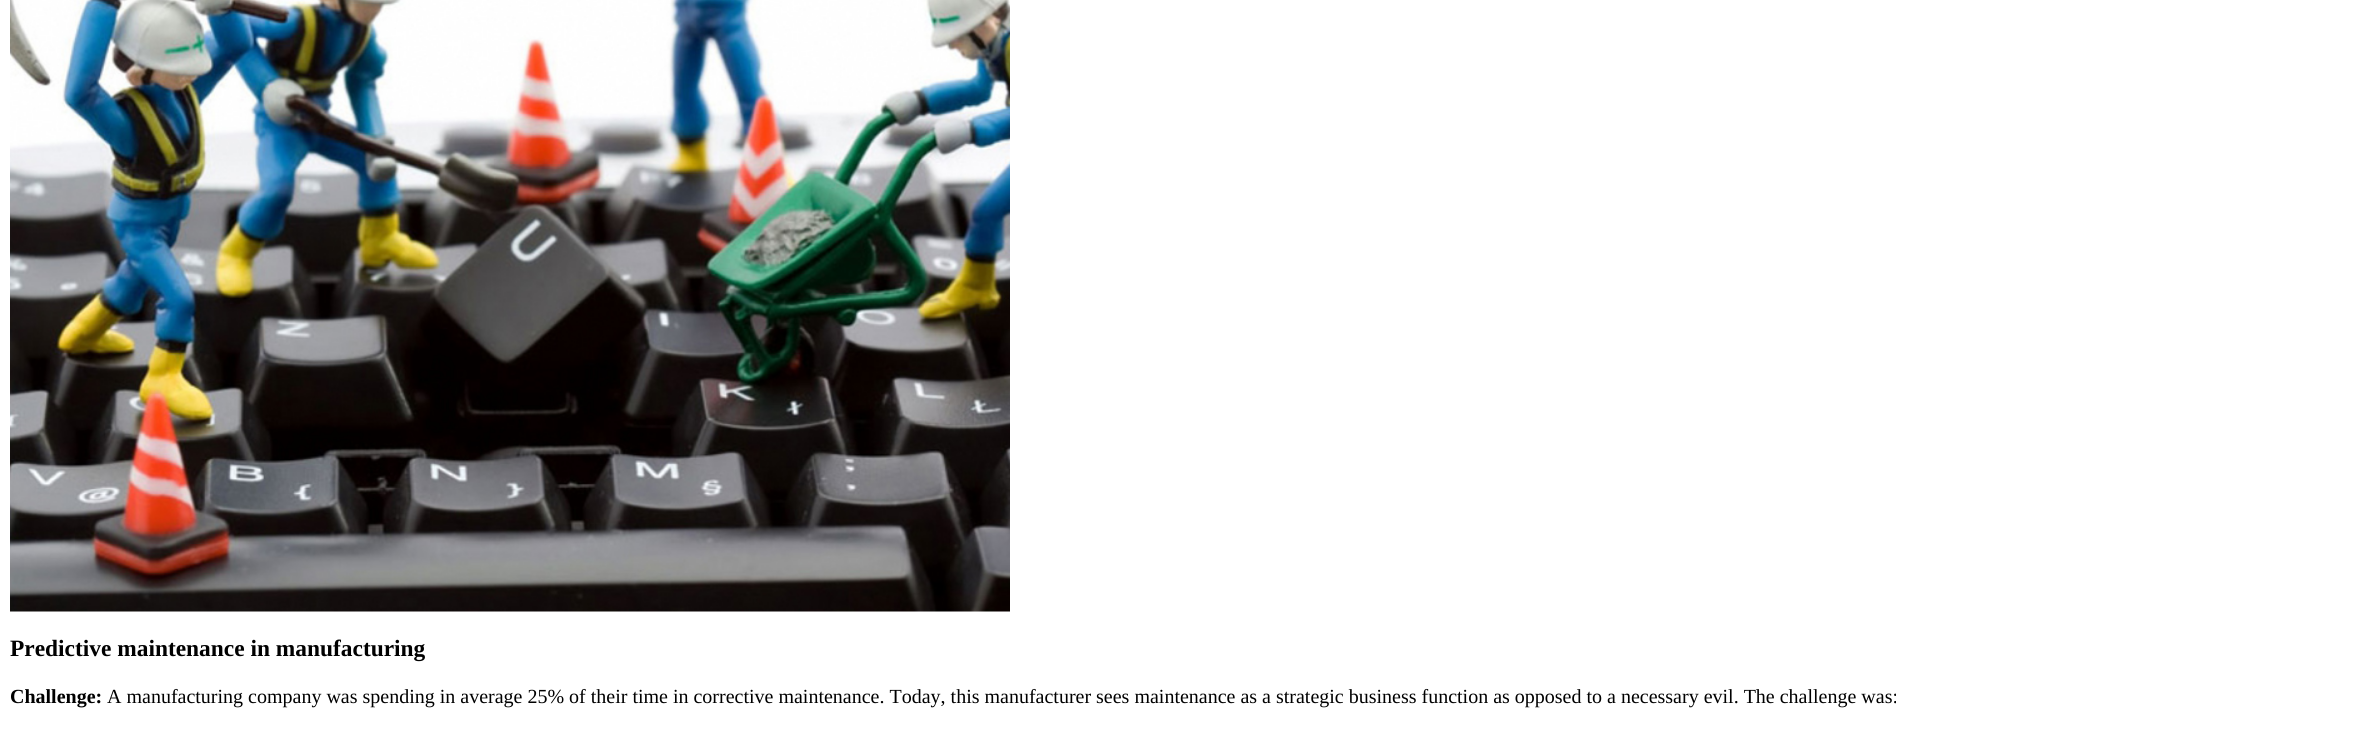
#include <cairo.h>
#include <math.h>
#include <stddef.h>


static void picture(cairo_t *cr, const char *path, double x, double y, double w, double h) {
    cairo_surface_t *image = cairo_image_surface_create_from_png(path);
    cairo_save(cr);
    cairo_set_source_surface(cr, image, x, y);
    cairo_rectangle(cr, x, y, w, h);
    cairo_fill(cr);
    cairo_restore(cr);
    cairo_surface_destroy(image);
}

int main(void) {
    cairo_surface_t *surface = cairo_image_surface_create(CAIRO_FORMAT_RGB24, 2361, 736);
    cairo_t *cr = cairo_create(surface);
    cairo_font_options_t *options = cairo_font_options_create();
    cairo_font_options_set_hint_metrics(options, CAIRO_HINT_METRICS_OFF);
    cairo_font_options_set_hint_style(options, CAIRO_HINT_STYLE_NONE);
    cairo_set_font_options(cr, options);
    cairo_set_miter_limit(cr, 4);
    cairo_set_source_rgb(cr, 1, 1, 1);
    cairo_paint(cr);
    picture(cr, "img1.png", 10, 0, 1000, 612);
    cairo_select_font_face(cr, "Liberation Serif", CAIRO_FONT_SLANT_NORMAL, CAIRO_FONT_WEIGHT_BOLD);
    cairo_set_font_size(cr, 23.4);
    cairo_set_source_rgb(cr, 0, 0, 0);
    cairo_move_to(cr, 10, 656);
    cairo_show_text(cr, "Predictive maintenance in manufacturing");
    cairo_set_font_size(cr, 20);
    cairo_move_to(cr, 10, 703);
    cairo_show_text(cr, "Challenge:");
    cairo_select_font_face(cr, "Liberation Serif", CAIRO_FONT_SLANT_NORMAL, CAIRO_FONT_WEIGHT_NORMAL);
    cairo_move_to(cr, 107, 703);
    cairo_show_text(cr, "A manufacturing company was spending in average 25% of their time in corrective maintenance. Today, this manufacturer sees maintenance as a strategic business function as opposed to a necessary evil. The challenge was:");
    cairo_surface_write_to_png(surface, "page.png");
    cairo_font_options_destroy(options);
    cairo_destroy(cr);
    cairo_surface_destroy(surface);
    return 0;
}
